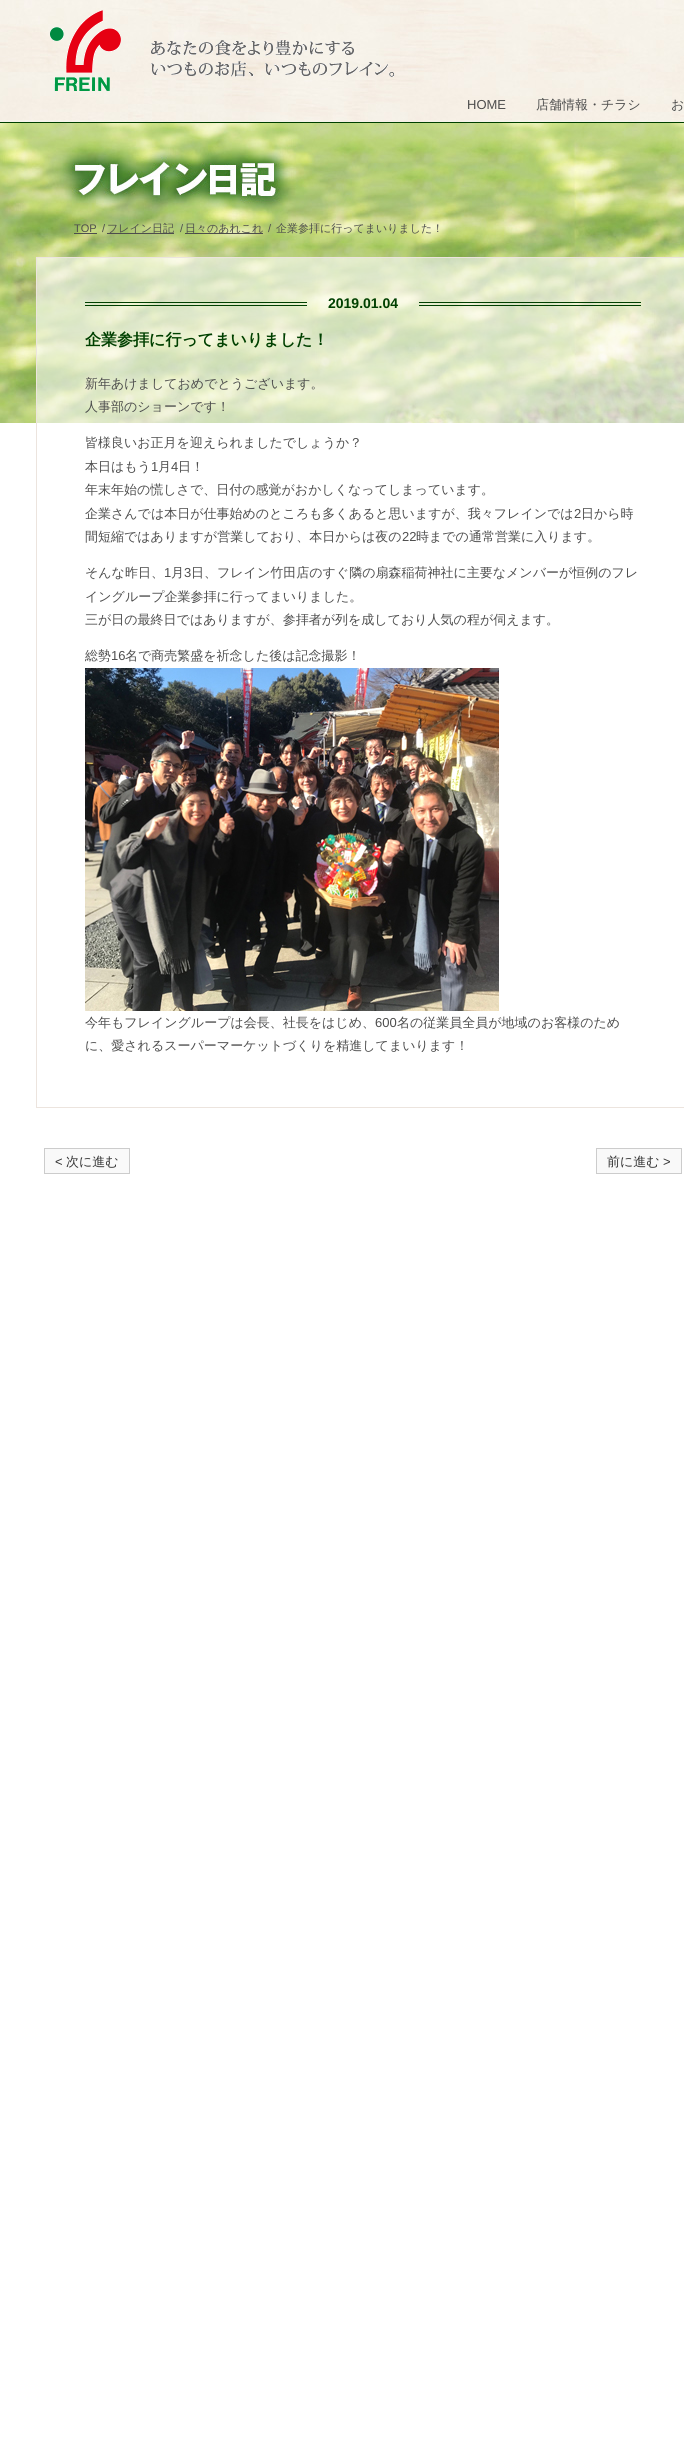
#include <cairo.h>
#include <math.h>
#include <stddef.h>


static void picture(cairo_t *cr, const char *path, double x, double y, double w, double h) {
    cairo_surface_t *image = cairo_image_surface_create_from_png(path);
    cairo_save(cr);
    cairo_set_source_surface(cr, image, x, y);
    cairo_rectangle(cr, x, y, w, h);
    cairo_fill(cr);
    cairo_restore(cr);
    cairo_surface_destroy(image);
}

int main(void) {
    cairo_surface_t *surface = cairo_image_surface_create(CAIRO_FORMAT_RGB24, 684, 2445);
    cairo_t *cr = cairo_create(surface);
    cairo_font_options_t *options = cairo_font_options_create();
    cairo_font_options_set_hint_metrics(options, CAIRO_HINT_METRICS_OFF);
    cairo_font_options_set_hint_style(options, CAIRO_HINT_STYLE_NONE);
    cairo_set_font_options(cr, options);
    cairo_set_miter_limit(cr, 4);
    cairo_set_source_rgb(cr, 1, 1, 1);
    cairo_paint(cr);
    picture(cr, "img1.png", 0, 0, 684, 122);
    cairo_set_source_rgb(cr, 0, 0.251, 0);
    cairo_rectangle(cr, 0, 122, 684, 1);
    cairo_fill(cr);
    picture(cr, "img2.png", 50, 10, 71, 81);
    picture(cr, "img3.png", 151, 40, 244, 37);
    cairo_select_font_face(cr, "Liberation Sans", CAIRO_FONT_SLANT_NORMAL, CAIRO_FONT_WEIGHT_NORMAL);
    cairo_set_font_size(cr, 13);
    cairo_set_source_rgb(cr, 0.302, 0.302, 0.302);
    cairo_move_to(cr, 467, 109);
    cairo_show_text(cr, "HOME");
    cairo_select_font_face(cr, "WenQuanYi Zen Hei Medium", CAIRO_FONT_SLANT_NORMAL, CAIRO_FONT_WEIGHT_NORMAL);
    cairo_move_to(cr, 536, 109);
    cairo_show_text(cr, "店舗情報・チラシ");
    cairo_move_to(cr, 671, 109);
    cairo_show_text(cr, "お");
    picture(cr, "img4.png", 0, 123, 684, 300);
    cairo_select_font_face(cr, "Liberation Sans", CAIRO_FONT_SLANT_NORMAL, CAIRO_FONT_WEIGHT_NORMAL);
    cairo_set_font_size(cr, 11);
    cairo_move_to(cr, 74, 232);
    cairo_show_text(cr, "TOP");
    cairo_rectangle(cr, 74, 233, 23, 1);
    cairo_fill(cr);
    cairo_move_to(cr, 102, 232);
    cairo_show_text(cr, "/");
    cairo_rectangle(cr, 107, 233, 67, 1);
    cairo_fill(cr);
    cairo_select_font_face(cr, "WenQuanYi Zen Hei Medium", CAIRO_FONT_SLANT_NORMAL, CAIRO_FONT_WEIGHT_NORMAL);
    cairo_move_to(cr, 107, 232);
    cairo_show_text(cr, "フレイン日記");
    cairo_select_font_face(cr, "Liberation Sans", CAIRO_FONT_SLANT_NORMAL, CAIRO_FONT_WEIGHT_NORMAL);
    cairo_move_to(cr, 180, 232);
    cairo_show_text(cr, "/");
    cairo_rectangle(cr, 185, 233, 78, 1);
    cairo_fill(cr);
    cairo_select_font_face(cr, "WenQuanYi Zen Hei Medium", CAIRO_FONT_SLANT_NORMAL, CAIRO_FONT_WEIGHT_NORMAL);
    cairo_move_to(cr, 185, 232);
    cairo_show_text(cr, "日々のあれこれ");
    cairo_select_font_face(cr, "Liberation Sans", CAIRO_FONT_SLANT_NORMAL, CAIRO_FONT_WEIGHT_NORMAL);
    cairo_move_to(cr, 268, 232);
    cairo_show_text(cr, "/");
    cairo_select_font_face(cr, "WenQuanYi Zen Hei Medium", CAIRO_FONT_SLANT_NORMAL, CAIRO_FONT_WEIGHT_NORMAL);
    cairo_move_to(cr, 276, 232);
    cairo_show_text(cr, "企業参拝に行ってまいりました！");
    cairo_set_source_rgba(cr, 1, 1, 1, 0.6);
    cairo_rectangle(cr, 37, 258, 647, 165);
    cairo_fill(cr);
    cairo_rectangle(cr, 36.5, 257.5, 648, 850);
    cairo_set_source_rgb(cr, 0.925, 0.894, 0.871);
    cairo_set_line_width(cr, 1);
    cairo_stroke(cr);
    cairo_set_source_rgb(cr, 0, 0.251, 0);
    cairo_rectangle(cr, 85, 302, 222, 1);
    cairo_fill(cr);
    cairo_rectangle(cr, 85, 305, 222, 1);
    cairo_fill(cr);
    cairo_select_font_face(cr, "Liberation Sans", CAIRO_FONT_SLANT_NORMAL, CAIRO_FONT_WEIGHT_BOLD);
    cairo_set_font_size(cr, 14);
    cairo_move_to(cr, 328, 308);
    cairo_show_text(cr, "2019.01.04");
    cairo_rectangle(cr, 419, 302, 222, 1);
    cairo_fill(cr);
    cairo_rectangle(cr, 419, 305, 222, 1);
    cairo_fill(cr);
    cairo_select_font_face(cr, "WenQuanYi Zen Hei", CAIRO_FONT_SLANT_NORMAL, CAIRO_FONT_WEIGHT_BOLD);
    cairo_set_font_size(cr, 16);
    cairo_move_to(cr, 85, 345);
    cairo_show_text(cr, "企業参拝に行ってまいりました！");
    cairo_select_font_face(cr, "WenQuanYi Zen Hei Medium", CAIRO_FONT_SLANT_NORMAL, CAIRO_FONT_WEIGHT_NORMAL);
    cairo_set_font_size(cr, 13);
    cairo_set_source_rgb(cr, 0.302, 0.302, 0.302);
    cairo_move_to(cr, 85, 388);
    cairo_show_text(cr, "新年あけましておめでとうございます。");
    cairo_move_to(cr, 85, 411);
    cairo_show_text(cr, "人事部のショーンです！");
    cairo_move_to(cr, 85, 447);
    cairo_show_text(cr, "皆様良いお正月を迎えられましたでしょうか？");
    cairo_move_to(cr, 85, 471);
    cairo_show_text(cr, "本日はもう");
    cairo_select_font_face(cr, "Liberation Sans", CAIRO_FONT_SLANT_NORMAL, CAIRO_FONT_WEIGHT_NORMAL);
    cairo_move_to(cr, 151, 471);
    cairo_show_text(cr, "1");
    cairo_select_font_face(cr, "WenQuanYi Zen Hei Medium", CAIRO_FONT_SLANT_NORMAL, CAIRO_FONT_WEIGHT_NORMAL);
    cairo_move_to(cr, 158, 471);
    cairo_show_text(cr, "月");
    cairo_select_font_face(cr, "Liberation Sans", CAIRO_FONT_SLANT_NORMAL, CAIRO_FONT_WEIGHT_NORMAL);
    cairo_move_to(cr, 171, 471);
    cairo_show_text(cr, "4");
    cairo_select_font_face(cr, "WenQuanYi Zen Hei Medium", CAIRO_FONT_SLANT_NORMAL, CAIRO_FONT_WEIGHT_NORMAL);
    cairo_move_to(cr, 178, 471);
    cairo_show_text(cr, "日！");
    cairo_move_to(cr, 85, 494);
    cairo_show_text(cr, "年末年始の慌しさで、日付の感覚がおかしくなってしまっています。");
    cairo_move_to(cr, 85, 518);
    cairo_show_text(cr, "企業さんでは本日が仕事始めのところも多くあると思いますが、我々フレインでは");
    cairo_select_font_face(cr, "Liberation Sans", CAIRO_FONT_SLANT_NORMAL, CAIRO_FONT_WEIGHT_NORMAL);
    cairo_move_to(cr, 574, 518);
    cairo_show_text(cr, "2");
    cairo_select_font_face(cr, "WenQuanYi Zen Hei Medium", CAIRO_FONT_SLANT_NORMAL, CAIRO_FONT_WEIGHT_NORMAL);
    cairo_move_to(cr, 581, 518);
    cairo_show_text(cr, "日から時");
    cairo_move_to(cr, 85, 541);
    cairo_show_text(cr, "間短縮ではありますが営業しており、本日からは夜の");
    cairo_select_font_face(cr, "Liberation Sans", CAIRO_FONT_SLANT_NORMAL, CAIRO_FONT_WEIGHT_NORMAL);
    cairo_move_to(cr, 402, 541);
    cairo_show_text(cr, "22");
    cairo_select_font_face(cr, "WenQuanYi Zen Hei Medium", CAIRO_FONT_SLANT_NORMAL, CAIRO_FONT_WEIGHT_NORMAL);
    cairo_move_to(cr, 416, 541);
    cairo_show_text(cr, "時までの通常営業に入ります。");
    cairo_move_to(cr, 85, 577);
    cairo_show_text(cr, "そんな昨日、");
    cairo_select_font_face(cr, "Liberation Sans", CAIRO_FONT_SLANT_NORMAL, CAIRO_FONT_WEIGHT_NORMAL);
    cairo_move_to(cr, 164, 577);
    cairo_show_text(cr, "1");
    cairo_select_font_face(cr, "WenQuanYi Zen Hei Medium", CAIRO_FONT_SLANT_NORMAL, CAIRO_FONT_WEIGHT_NORMAL);
    cairo_move_to(cr, 171, 577);
    cairo_show_text(cr, "月");
    cairo_select_font_face(cr, "Liberation Sans", CAIRO_FONT_SLANT_NORMAL, CAIRO_FONT_WEIGHT_NORMAL);
    cairo_move_to(cr, 184, 577);
    cairo_show_text(cr, "3");
    cairo_select_font_face(cr, "WenQuanYi Zen Hei Medium", CAIRO_FONT_SLANT_NORMAL, CAIRO_FONT_WEIGHT_NORMAL);
    cairo_move_to(cr, 191, 577);
    cairo_show_text(cr, "日、フレイン竹田店のすぐ隣の扇森稲荷神社に主要なメンバーが恒例のフレ");
    cairo_move_to(cr, 85, 601);
    cairo_show_text(cr, "イングループ企業参拝に行ってまいりました。");
    cairo_move_to(cr, 85, 624);
    cairo_show_text(cr, "三が日の最終日ではありますが、参拝者が列を成しており人気の程が伺えます。");
    cairo_move_to(cr, 85, 660);
    cairo_show_text(cr, "総勢");
    cairo_select_font_face(cr, "Liberation Sans", CAIRO_FONT_SLANT_NORMAL, CAIRO_FONT_WEIGHT_NORMAL);
    cairo_move_to(cr, 111, 660);
    cairo_show_text(cr, "16");
    cairo_select_font_face(cr, "WenQuanYi Zen Hei Medium", CAIRO_FONT_SLANT_NORMAL, CAIRO_FONT_WEIGHT_NORMAL);
    cairo_move_to(cr, 125, 660);
    cairo_show_text(cr, "名で商売繁盛を祈念した後は記念撮影！");
    picture(cr, "img5.png", 85, 668, 414, 343);
    cairo_move_to(cr, 85, 1027);
    cairo_show_text(cr, "今年もフレイングループは会長、社長をはじめ、");
    cairo_select_font_face(cr, "Liberation Sans", CAIRO_FONT_SLANT_NORMAL, CAIRO_FONT_WEIGHT_NORMAL);
    cairo_move_to(cr, 375, 1027);
    cairo_show_text(cr, "600");
    cairo_select_font_face(cr, "WenQuanYi Zen Hei Medium", CAIRO_FONT_SLANT_NORMAL, CAIRO_FONT_WEIGHT_NORMAL);
    cairo_move_to(cr, 397, 1027);
    cairo_show_text(cr, "名の従業員全員が地域のお客様のため");
    cairo_move_to(cr, 85, 1050);
    cairo_show_text(cr, "に、愛されるスーパーマーケットづくりを精進してまいります！");
    cairo_set_source_rgb(cr, 0.976, 0.976, 0.976);
    cairo_rectangle(cr, 44.5, 1148.5, 85, 25);
    cairo_fill_preserve(cr);
    cairo_set_source_rgb(cr, 0.8, 0.8, 0.8);
    cairo_stroke(cr);
    cairo_select_font_face(cr, "Liberation Sans", CAIRO_FONT_SLANT_NORMAL, CAIRO_FONT_WEIGHT_NORMAL);
    cairo_set_source_rgb(cr, 0.2, 0.2, 0.2);
    cairo_move_to(cr, 55, 1166);
    cairo_show_text(cr, "<");
    cairo_select_font_face(cr, "WenQuanYi Zen Hei Medium", CAIRO_FONT_SLANT_NORMAL, CAIRO_FONT_WEIGHT_NORMAL);
    cairo_move_to(cr, 66, 1166);
    cairo_show_text(cr, "次に進む");
    cairo_set_source_rgb(cr, 0.976, 0.976, 0.976);
    cairo_rectangle(cr, 596.5, 1148.5, 85, 25);
    cairo_fill_preserve(cr);
    cairo_set_source_rgb(cr, 0.8, 0.8, 0.8);
    cairo_stroke(cr);
    cairo_set_source_rgb(cr, 0.2, 0.2, 0.2);
    cairo_move_to(cr, 607, 1166);
    cairo_show_text(cr, "前に進む");
    cairo_select_font_face(cr, "Liberation Sans", CAIRO_FONT_SLANT_NORMAL, CAIRO_FONT_WEIGHT_NORMAL);
    cairo_move_to(cr, 663, 1166);
    cairo_show_text(cr, ">");
    cairo_surface_write_to_png(surface, "page.png");
    cairo_font_options_destroy(options);
    cairo_destroy(cr);
    cairo_surface_destroy(surface);
    return 0;
}
